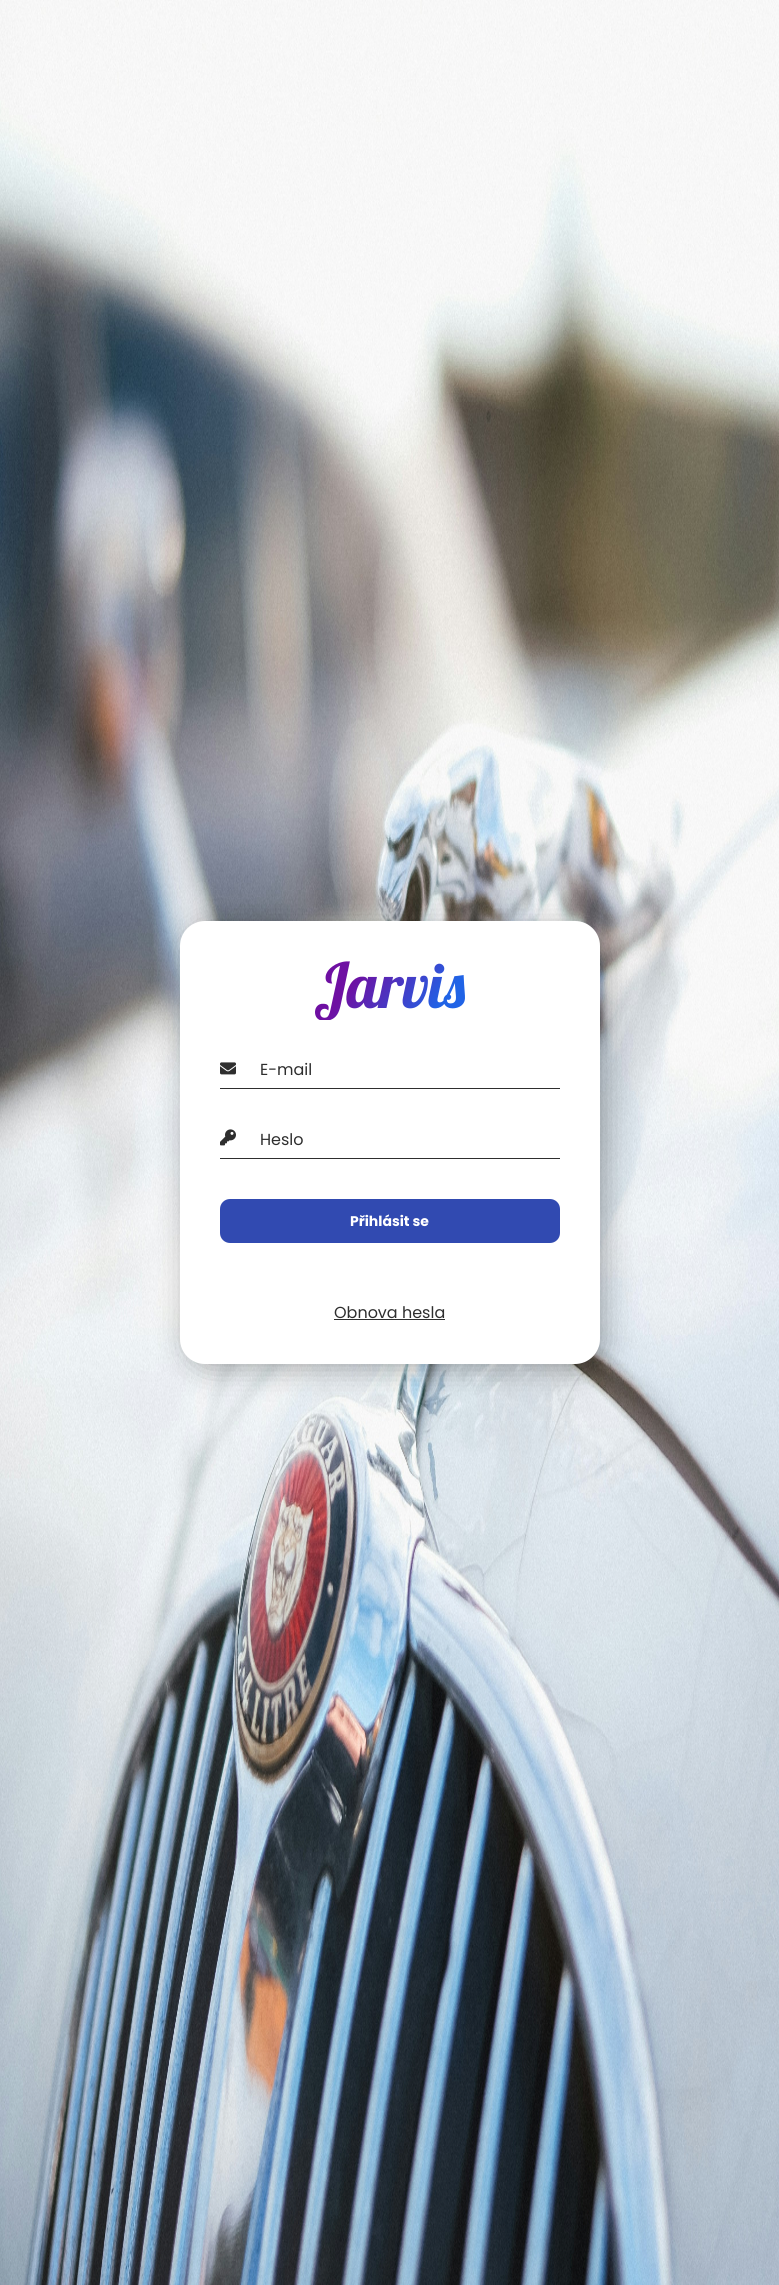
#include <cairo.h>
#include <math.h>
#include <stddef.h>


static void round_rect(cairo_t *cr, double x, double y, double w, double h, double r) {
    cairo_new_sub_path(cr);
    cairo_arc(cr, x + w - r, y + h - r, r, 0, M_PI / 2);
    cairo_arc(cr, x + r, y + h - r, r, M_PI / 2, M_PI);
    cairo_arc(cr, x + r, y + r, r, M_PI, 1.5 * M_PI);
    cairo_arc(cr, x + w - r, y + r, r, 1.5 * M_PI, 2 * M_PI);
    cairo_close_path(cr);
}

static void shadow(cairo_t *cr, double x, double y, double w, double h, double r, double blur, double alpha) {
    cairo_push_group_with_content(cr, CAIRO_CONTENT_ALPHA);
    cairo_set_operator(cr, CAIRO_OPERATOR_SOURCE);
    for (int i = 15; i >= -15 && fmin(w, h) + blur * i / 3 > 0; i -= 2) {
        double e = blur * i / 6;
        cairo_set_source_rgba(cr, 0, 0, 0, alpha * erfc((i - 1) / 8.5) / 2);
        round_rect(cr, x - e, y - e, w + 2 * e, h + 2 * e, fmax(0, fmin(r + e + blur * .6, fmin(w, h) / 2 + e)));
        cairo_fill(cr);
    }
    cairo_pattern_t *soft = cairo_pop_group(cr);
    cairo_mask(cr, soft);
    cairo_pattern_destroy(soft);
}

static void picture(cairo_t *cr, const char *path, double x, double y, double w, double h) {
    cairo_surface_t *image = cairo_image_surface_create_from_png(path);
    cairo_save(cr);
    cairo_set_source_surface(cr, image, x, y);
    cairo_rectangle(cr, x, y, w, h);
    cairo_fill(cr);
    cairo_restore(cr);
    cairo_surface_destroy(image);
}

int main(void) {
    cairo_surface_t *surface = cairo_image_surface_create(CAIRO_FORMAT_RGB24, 779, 2285);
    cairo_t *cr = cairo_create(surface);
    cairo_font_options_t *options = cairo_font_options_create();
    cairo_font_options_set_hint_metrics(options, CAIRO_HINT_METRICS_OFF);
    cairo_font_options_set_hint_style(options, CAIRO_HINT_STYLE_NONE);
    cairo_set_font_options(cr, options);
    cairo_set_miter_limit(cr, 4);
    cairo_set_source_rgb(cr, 1, 1, 1);
    cairo_paint(cr);
    picture(cr, "img1.png", 0, 0, 779, 2285);
    cairo_set_source_rgb(cr, 0, 0, 0);
    shadow(cr, 185, 926, 420, 443, 25, 15, 0.3);
    cairo_set_source_rgb(cr, 1, 1, 1);
    round_rect(cr, 180, 921, 420, 443, 25);
    cairo_fill(cr);
    picture(cr, "img2.png", 315, 961, 150, 59);
    picture(cr, "img3.png", 220, 1062, 16, 13);
    cairo_select_font_face(cr, "Poppins", CAIRO_FONT_SLANT_NORMAL, CAIRO_FONT_WEIGHT_NORMAL);
    cairo_set_font_size(cr, 16);
    cairo_set_source_rgb(cr, 0.18, 0.18, 0.18);
    cairo_move_to(cr, 260, 1075);
    cairo_show_text(cr, "E-mail");
    cairo_rectangle(cr, 220, 1088, 340, 1);
    cairo_fill(cr);
    picture(cr, "img4.png", 220, 1129, 16, 17);
    cairo_move_to(cr, 260, 1145);
    cairo_show_text(cr, "Heslo");
    cairo_rectangle(cr, 220, 1158, 340, 1);
    cairo_fill(cr);
    cairo_set_source_rgb(cr, 0.192, 0.29, 0.694);
    round_rect(cr, 220, 1199, 340, 44, 10);
    cairo_fill(cr);
    cairo_select_font_face(cr, "Poppins", CAIRO_FONT_SLANT_NORMAL, CAIRO_FONT_WEIGHT_BOLD);
    cairo_set_font_size(cr, 14);
    cairo_set_source_rgb(cr, 1, 1, 1);
    cairo_move_to(cr, 350, 1226);
    cairo_show_text(cr, "Přihlásit se");
    cairo_select_font_face(cr, "Poppins", CAIRO_FONT_SLANT_NORMAL, CAIRO_FONT_WEIGHT_NORMAL);
    cairo_set_font_size(cr, 16);
    cairo_set_source_rgb(cr, 0.18, 0.18, 0.18);
    cairo_move_to(cr, 334, 1318);
    cairo_show_text(cr, "Obnova hesla");
    cairo_rectangle(cr, 334, 1319, 111, 1);
    cairo_fill(cr);
    cairo_surface_write_to_png(surface, "page.png");
    cairo_font_options_destroy(options);
    cairo_destroy(cr);
    cairo_surface_destroy(surface);
    return 0;
}
